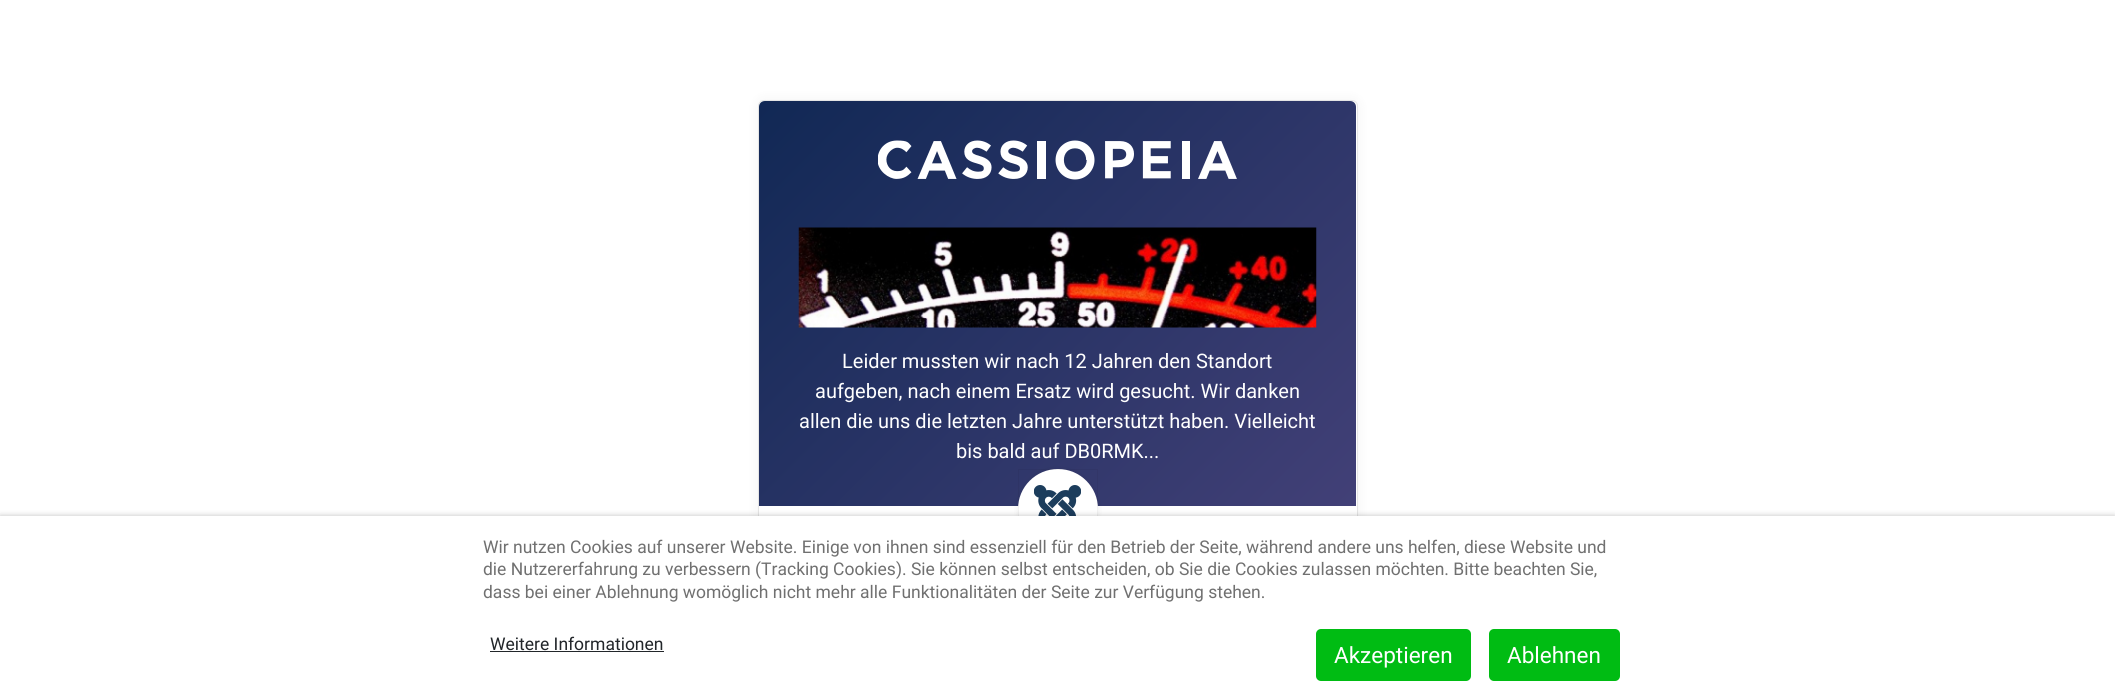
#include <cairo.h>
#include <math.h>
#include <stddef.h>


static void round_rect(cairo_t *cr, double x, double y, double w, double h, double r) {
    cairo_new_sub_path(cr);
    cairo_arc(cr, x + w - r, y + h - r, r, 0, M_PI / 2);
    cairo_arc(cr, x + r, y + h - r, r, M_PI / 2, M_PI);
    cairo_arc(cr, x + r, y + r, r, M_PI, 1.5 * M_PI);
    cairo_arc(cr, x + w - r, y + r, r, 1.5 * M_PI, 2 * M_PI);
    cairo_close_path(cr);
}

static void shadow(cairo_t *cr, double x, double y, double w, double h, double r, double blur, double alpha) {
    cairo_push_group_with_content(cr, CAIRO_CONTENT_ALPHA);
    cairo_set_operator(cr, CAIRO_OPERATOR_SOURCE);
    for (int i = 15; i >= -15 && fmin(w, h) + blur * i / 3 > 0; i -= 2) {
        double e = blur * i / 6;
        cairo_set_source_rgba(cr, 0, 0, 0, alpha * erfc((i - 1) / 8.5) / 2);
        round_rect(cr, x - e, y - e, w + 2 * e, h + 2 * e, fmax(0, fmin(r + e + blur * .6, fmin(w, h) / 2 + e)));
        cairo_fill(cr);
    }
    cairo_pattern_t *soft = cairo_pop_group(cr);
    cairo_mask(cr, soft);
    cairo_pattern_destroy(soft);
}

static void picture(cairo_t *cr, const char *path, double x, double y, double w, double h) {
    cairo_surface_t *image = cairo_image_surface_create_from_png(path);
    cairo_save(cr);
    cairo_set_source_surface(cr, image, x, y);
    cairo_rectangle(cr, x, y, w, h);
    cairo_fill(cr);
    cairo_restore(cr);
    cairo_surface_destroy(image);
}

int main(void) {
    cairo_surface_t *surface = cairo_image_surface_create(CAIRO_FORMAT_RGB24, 2115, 700);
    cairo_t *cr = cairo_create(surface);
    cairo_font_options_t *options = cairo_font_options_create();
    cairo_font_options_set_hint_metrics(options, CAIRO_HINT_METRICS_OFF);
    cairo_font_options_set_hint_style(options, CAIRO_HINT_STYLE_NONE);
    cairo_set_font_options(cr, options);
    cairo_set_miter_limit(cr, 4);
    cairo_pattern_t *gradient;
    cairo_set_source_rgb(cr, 1, 1, 1);
    cairo_paint(cr);
    cairo_set_source_rgb(cr, 0, 0, 0);
    shadow(cr, 758, 100, 600, 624, 6, 6, 0.05);
    cairo_set_source_rgb(cr, 1, 1, 1);
    round_rect(cr, 758.5, 100.5, 599, 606, 5.5);
    cairo_fill_preserve(cr);
    cairo_set_source_rgb(cr, 0.898, 0.898, 0.898);
    cairo_set_line_width(cr, 1);
    cairo_stroke(cr);
    gradient = cairo_pattern_create_linear(807, 53, 1308, 554);
    cairo_pattern_add_color_stop_rgba(gradient, 0, 0.067, 0.157, 0.333, 1);
    cairo_pattern_add_color_stop_rgba(gradient, 1, 0.259, 0.251, 0.467, 1);
    cairo_set_source(cr, gradient);
    cairo_pattern_destroy(gradient);
    cairo_new_path(cr);
    cairo_move_to(cr, 765, 101);
    cairo_line_to(cr, 1350, 101);
    cairo_curve_to(cr, 1353.5, 101, 1356, 103.5, 1356, 107);
    cairo_line_to(cr, 1356, 506);
    cairo_line_to(cr, 759, 506);
    cairo_line_to(cr, 759, 107);
    cairo_curve_to(cr, 759, 103.5, 761.5, 101, 765, 101);
    cairo_close_path(cr);
    cairo_fill(cr);
    picture(cr, "img1.png", 878, 140, 359, 40);
    picture(cr, "img2.png", 798, 227, 519, 101);
    cairo_select_font_face(cr, "Roboto", CAIRO_FONT_SLANT_NORMAL, CAIRO_FONT_WEIGHT_NORMAL);
    cairo_set_font_size(cr, 20);
    cairo_set_source_rgb(cr, 1, 1, 1);
    cairo_move_to(cr, 842, 368);
    cairo_show_text(cr, "Leider mussten wir nach 12 Jahren den Standort");
    cairo_move_to(cr, 815, 398);
    cairo_show_text(cr, "aufgeben, nach einem Ersatz wird gesucht. Wir danken");
    cairo_move_to(cr, 799, 428);
    cairo_show_text(cr, "allen die uns die letzten Jahre unterstützt haben. Vielleicht");
    cairo_move_to(cr, 956, 458);
    cairo_show_text(cr, "bis bald auf DB0RMK...");
    cairo_set_source_rgb(cr, 0, 0, 0);
    shadow(cr, 1018, 469, 80, 80, 40, 3, 0.07);
    cairo_set_source_rgb(cr, 1, 1, 1);
    cairo_arc(cr, 1058, 509, 40, 0, 2 * M_PI);
    cairo_fill(cr);
    cairo_rectangle(cr, 1018.5, 469.5, 79, 79);
    cairo_set_source_rgba(cr, 0, 0, 0, 0.05);
    cairo_stroke(cr);
    picture(cr, "img3.png", 1034, 485, 47, 31);
    cairo_set_source_rgb(cr, 0, 0, 0);
    shadow(cr, 0, 516, 2115, 184, 0, 3, 0.25);
    cairo_set_source_rgb(cr, 1, 1, 1);
    cairo_rectangle(cr, 0, 516, 2115, 184);
    cairo_fill(cr);
    cairo_set_font_size(cr, 17.5);
    cairo_set_source_rgb(cr, 0.439, 0.439, 0.439);
    cairo_move_to(cr, 483, 553);
    cairo_show_text(cr, "Wir nutzen Cookies auf unserer Website. Einige von ihnen sind essenziell für den Betrieb der Seite, während andere uns helfen, diese Website und");
    cairo_move_to(cr, 483, 575);
    cairo_show_text(cr, "die Nutzererfahrung zu verbessern (Tracking Cookies). Sie können selbst entscheiden, ob Sie die Cookies zulassen möchten. Bitte beachten Sie,");
    cairo_move_to(cr, 483, 598);
    cairo_show_text(cr, "dass bei einer Ablehnung womöglich nicht mehr alle Funktionalitäten der Seite zur Verfügung stehen.");
    cairo_set_source_rgb(cr, 0.133, 0.149, 0.165);
    cairo_move_to(cr, 490, 650);
    cairo_show_text(cr, "Weitere Informationen");
    cairo_rectangle(cr, 490, 651, 174, 1);
    cairo_fill(cr);
    cairo_set_source_rgb(cr, 0, 0.737, 0.075);
    round_rect(cr, 1316, 629, 155, 52, 5);
    cairo_fill(cr);
    cairo_set_font_size(cr, 22.5);
    cairo_set_source_rgb(cr, 1, 1, 1);
    cairo_move_to(cr, 1334, 663);
    cairo_show_text(cr, "Akzeptieren");
    cairo_set_source_rgb(cr, 0, 0.737, 0.075);
    round_rect(cr, 1489, 629, 131, 52, 5);
    cairo_fill(cr);
    cairo_set_source_rgb(cr, 1, 1, 1);
    cairo_move_to(cr, 1507, 663);
    cairo_show_text(cr, "Ablehnen");
    cairo_surface_write_to_png(surface, "page.png");
    cairo_font_options_destroy(options);
    cairo_destroy(cr);
    cairo_surface_destroy(surface);
    return 0;
}
